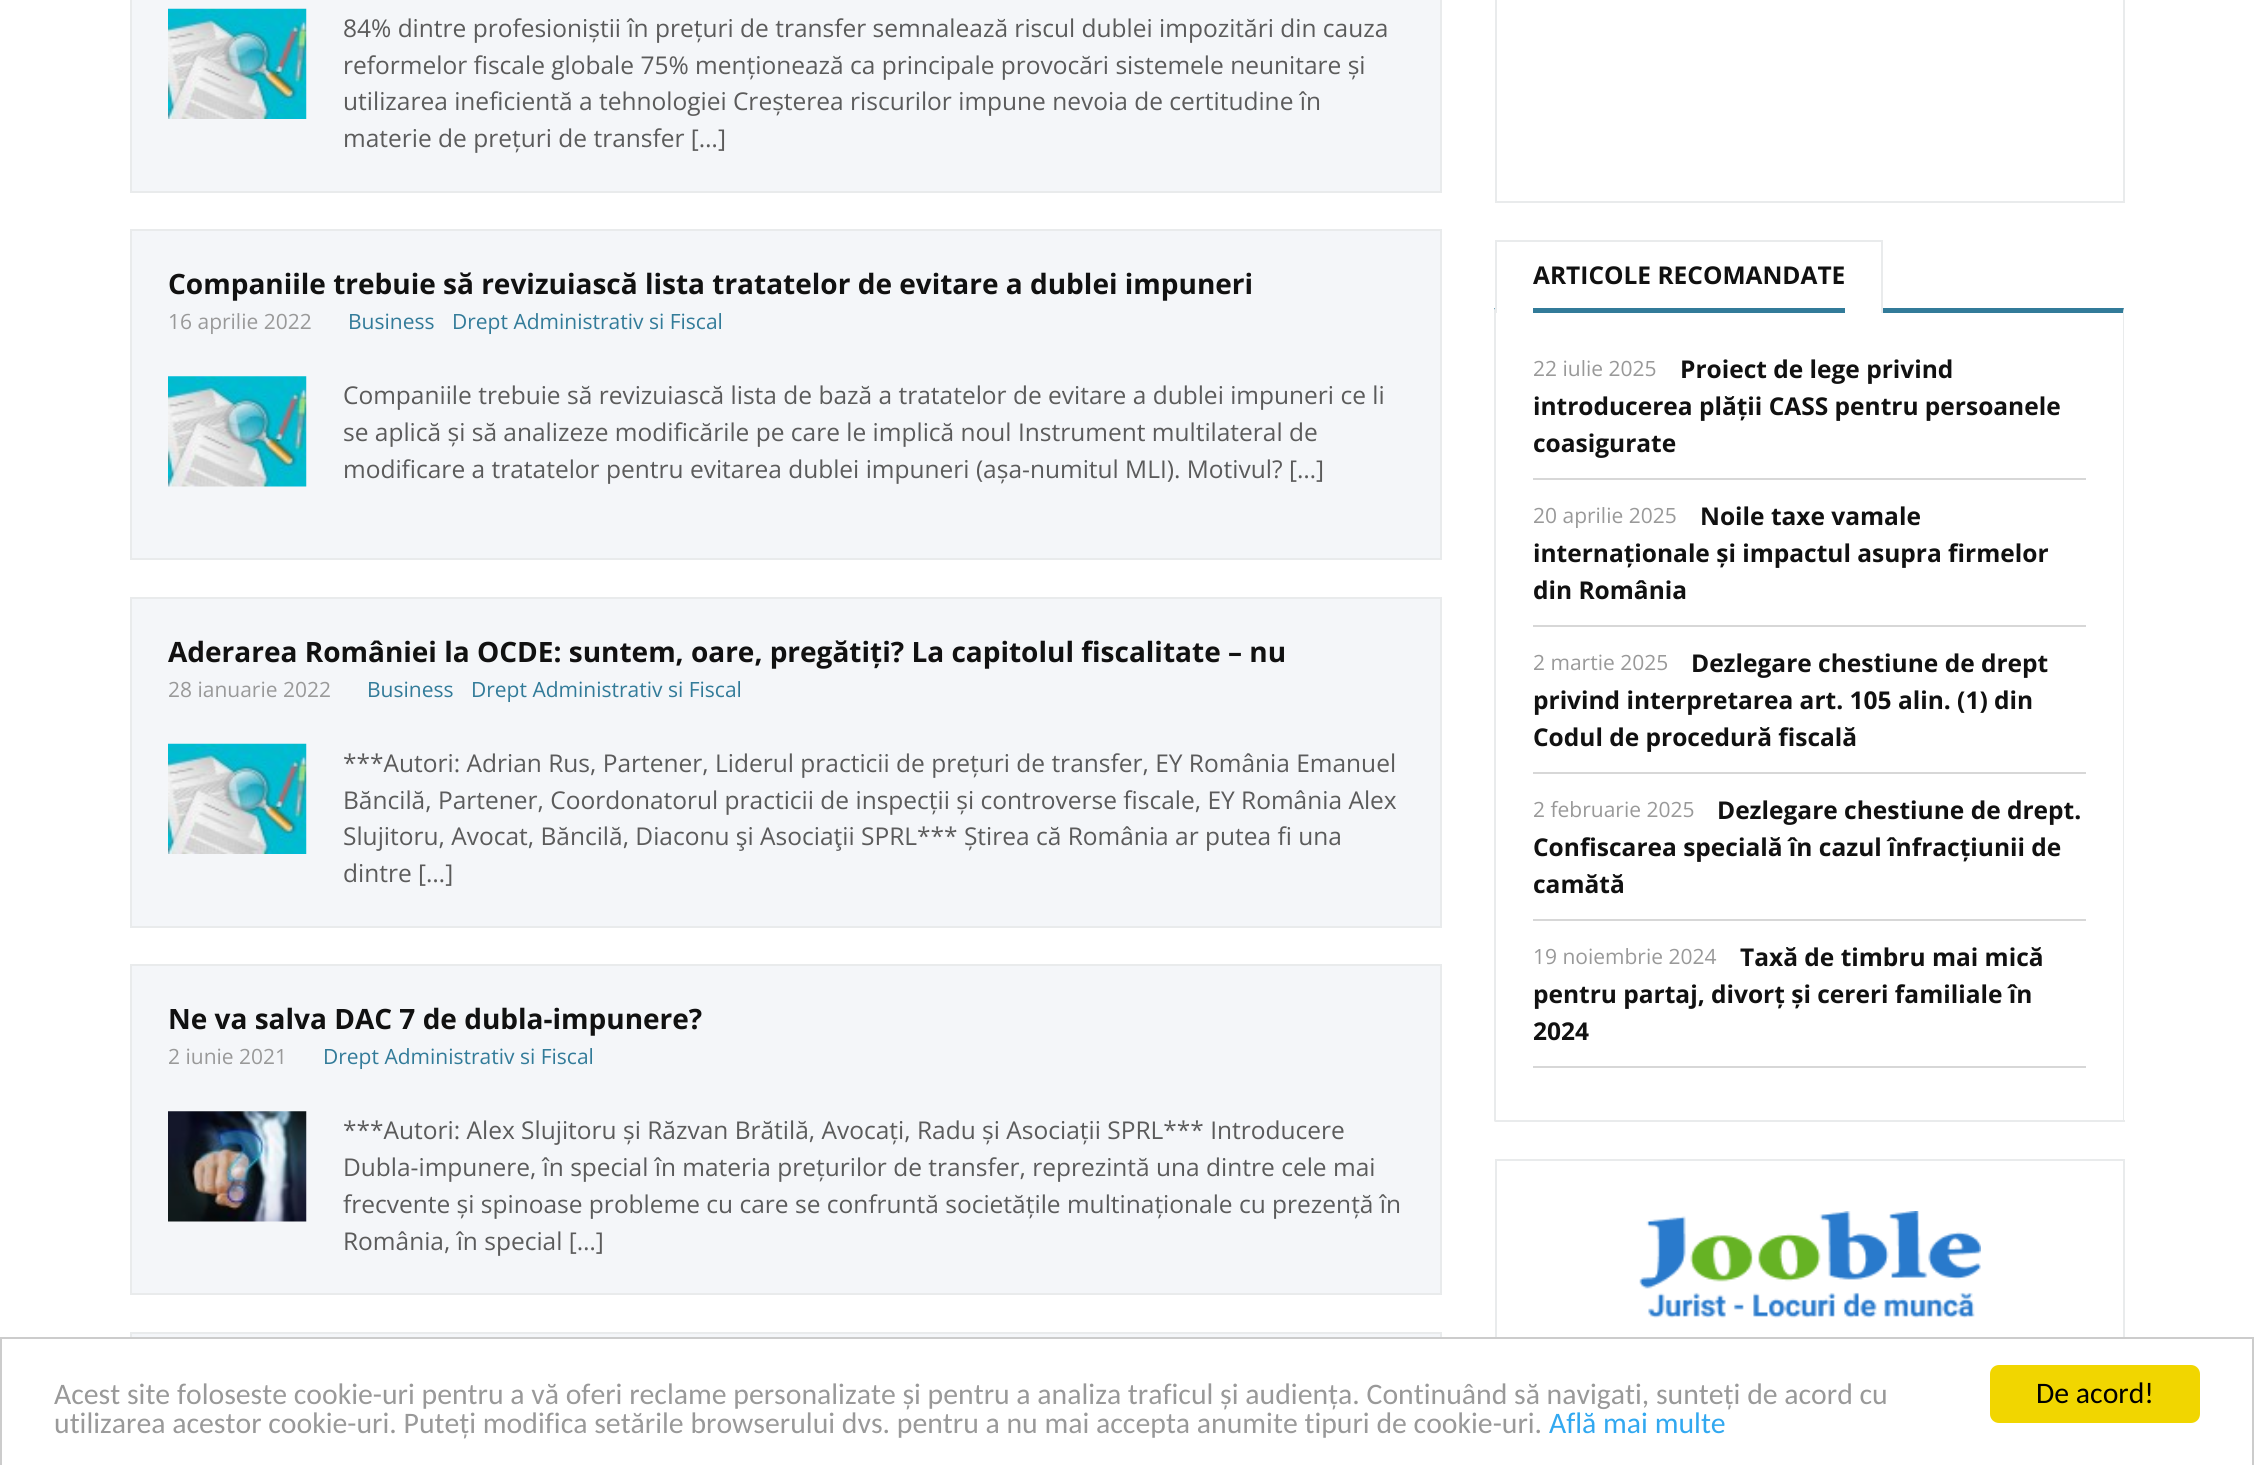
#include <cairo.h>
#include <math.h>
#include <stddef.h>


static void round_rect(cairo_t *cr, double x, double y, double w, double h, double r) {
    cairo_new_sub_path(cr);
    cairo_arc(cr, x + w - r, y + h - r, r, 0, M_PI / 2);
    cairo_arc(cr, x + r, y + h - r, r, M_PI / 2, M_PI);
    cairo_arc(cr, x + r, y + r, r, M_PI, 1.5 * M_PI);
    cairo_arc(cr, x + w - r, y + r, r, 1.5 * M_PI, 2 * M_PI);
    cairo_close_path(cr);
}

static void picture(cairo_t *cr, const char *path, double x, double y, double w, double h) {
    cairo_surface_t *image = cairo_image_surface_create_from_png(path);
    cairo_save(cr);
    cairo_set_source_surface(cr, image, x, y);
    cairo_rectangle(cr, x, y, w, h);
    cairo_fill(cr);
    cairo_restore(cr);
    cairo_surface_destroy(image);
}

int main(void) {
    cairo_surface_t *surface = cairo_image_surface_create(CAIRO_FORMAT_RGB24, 2254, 1465);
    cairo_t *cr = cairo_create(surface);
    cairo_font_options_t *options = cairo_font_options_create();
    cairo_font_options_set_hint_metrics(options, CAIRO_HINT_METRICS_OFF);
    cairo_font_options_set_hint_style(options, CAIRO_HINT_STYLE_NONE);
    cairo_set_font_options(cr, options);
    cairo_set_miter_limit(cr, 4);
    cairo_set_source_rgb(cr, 1, 1, 1);
    cairo_paint(cr);
    cairo_set_source_rgb(cr, 0.957, 0.961, 0.976);
    cairo_rectangle(cr, 131, -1, 1310, 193);
    cairo_fill_preserve(cr);
    cairo_set_source_rgb(cr, 0.914, 0.918, 0.925);
    cairo_stroke(cr);
    picture(cr, "img1.png", 168, 8, 139, 111);
    cairo_select_font_face(cr, "Open Sans", CAIRO_FONT_SLANT_NORMAL, CAIRO_FONT_WEIGHT_NORMAL);
    cairo_set_font_size(cr, 24.5);
    cairo_set_source_rgb(cr, 0.357, 0.357, 0.357);
    cairo_move_to(cr, 343, 37);
    cairo_show_text(cr, "84% dintre profesioniștii în prețuri de transfer semnalează riscul dublei impozitări din cauza");
    cairo_move_to(cr, 343, 74);
    cairo_show_text(cr, "reformelor fiscale globale 75% menționează ca principale provocări sistemele neunitare și");
    cairo_move_to(cr, 343, 110);
    cairo_show_text(cr, "utilizarea ineficientă a tehnologiei Creșterea riscurilor impune nevoia de certitudine în");
    cairo_move_to(cr, 343, 147);
    cairo_show_text(cr, "materie de prețuri de transfer […]");
    cairo_set_source_rgb(cr, 0.957, 0.961, 0.976);
    cairo_rectangle(cr, 131, 230, 1310, 329);
    cairo_fill_preserve(cr);
    cairo_set_source_rgb(cr, 0.914, 0.918, 0.925);
    cairo_stroke(cr);
    cairo_select_font_face(cr, "Open Sans", CAIRO_FONT_SLANT_NORMAL, CAIRO_FONT_WEIGHT_BOLD);
    cairo_set_font_size(cr, 28);
    cairo_set_source_rgb(cr, 0.067, 0.067, 0.067);
    cairo_move_to(cr, 168, 294);
    cairo_show_text(cr, "Companiile trebuie să revizuiască lista tratatelor de evitare a dublei impuneri");
    cairo_select_font_face(cr, "Open Sans", CAIRO_FONT_SLANT_NORMAL, CAIRO_FONT_WEIGHT_NORMAL);
    cairo_set_font_size(cr, 21);
    cairo_set_source_rgb(cr, 0.6, 0.6, 0.6);
    cairo_move_to(cr, 168, 329);
    cairo_show_text(cr, "16 aprilie 2022");
    cairo_set_source_rgb(cr, 0.196, 0.482, 0.6);
    cairo_move_to(cr, 348, 329);
    cairo_show_text(cr, "Business");
    cairo_move_to(cr, 452, 329);
    cairo_show_text(cr, "Drept Administrativ si Fiscal");
    picture(cr, "img2.png", 168, 376, 139, 111);
    cairo_set_font_size(cr, 24.5);
    cairo_set_source_rgb(cr, 0.357, 0.357, 0.357);
    cairo_move_to(cr, 343, 404);
    cairo_show_text(cr, "Companiile trebuie să revizuiască lista de bază a tratatelor de evitare a dublei impuneri ce li");
    cairo_move_to(cr, 343, 441);
    cairo_show_text(cr, "se aplică și să analizeze modificările pe care le implică noul Instrument multilateral de");
    cairo_move_to(cr, 343, 478);
    cairo_show_text(cr, "modificare a tratatelor pentru evitarea dublei impuneri (așa-numitul MLI). Motivul? […]");
    cairo_set_source_rgb(cr, 0.957, 0.961, 0.976);
    cairo_rectangle(cr, 131, 598, 1310, 329);
    cairo_fill_preserve(cr);
    cairo_set_source_rgb(cr, 0.914, 0.918, 0.925);
    cairo_stroke(cr);
    cairo_select_font_face(cr, "Open Sans", CAIRO_FONT_SLANT_NORMAL, CAIRO_FONT_WEIGHT_BOLD);
    cairo_set_font_size(cr, 28);
    cairo_set_source_rgb(cr, 0.067, 0.067, 0.067);
    cairo_move_to(cr, 168, 662);
    cairo_show_text(cr, "Aderarea României la OCDE: suntem, oare, pregătiți? La capitolul fiscalitate – nu");
    cairo_select_font_face(cr, "Open Sans", CAIRO_FONT_SLANT_NORMAL, CAIRO_FONT_WEIGHT_NORMAL);
    cairo_set_font_size(cr, 21);
    cairo_set_source_rgb(cr, 0.6, 0.6, 0.6);
    cairo_move_to(cr, 168, 697);
    cairo_show_text(cr, "28 ianuarie 2022");
    cairo_set_source_rgb(cr, 0.196, 0.482, 0.6);
    cairo_move_to(cr, 367, 697);
    cairo_show_text(cr, "Business");
    cairo_move_to(cr, 471, 697);
    cairo_show_text(cr, "Drept Administrativ si Fiscal");
    picture(cr, "img1.png", 168, 743, 139, 111);
    cairo_set_font_size(cr, 24.5);
    cairo_set_source_rgb(cr, 0.357, 0.357, 0.357);
    cairo_move_to(cr, 343, 772);
    cairo_show_text(cr, "***Autori: Adrian Rus, Partener, Liderul practicii de prețuri de transfer, EY România Emanuel");
    cairo_move_to(cr, 343, 809);
    cairo_show_text(cr, "Băncilă, Partener, Coordonatorul practicii de inspecții și controverse fiscale, EY România Alex");
    cairo_move_to(cr, 343, 845);
    cairo_show_text(cr, "Slujitoru, Avocat, Băncilă, Diaconu şi Asociaţii SPRL*** Știrea că România ar putea fi una");
    cairo_move_to(cr, 343, 882);
    cairo_show_text(cr, "dintre […]");
    cairo_set_source_rgb(cr, 0.957, 0.961, 0.976);
    cairo_rectangle(cr, 131, 965, 1310, 329);
    cairo_fill_preserve(cr);
    cairo_set_source_rgb(cr, 0.914, 0.918, 0.925);
    cairo_stroke(cr);
    cairo_select_font_face(cr, "Open Sans", CAIRO_FONT_SLANT_NORMAL, CAIRO_FONT_WEIGHT_BOLD);
    cairo_set_font_size(cr, 28);
    cairo_set_source_rgb(cr, 0.067, 0.067, 0.067);
    cairo_move_to(cr, 168, 1029);
    cairo_show_text(cr, "Ne va salva DAC 7 de dubla-impunere?");
    cairo_select_font_face(cr, "Open Sans", CAIRO_FONT_SLANT_NORMAL, CAIRO_FONT_WEIGHT_NORMAL);
    cairo_set_font_size(cr, 21);
    cairo_set_source_rgb(cr, 0.6, 0.6, 0.6);
    cairo_move_to(cr, 168, 1064);
    cairo_show_text(cr, "2 iunie 2021");
    cairo_set_source_rgb(cr, 0.196, 0.482, 0.6);
    cairo_move_to(cr, 323, 1064);
    cairo_show_text(cr, "Drept Administrativ si Fiscal");
    picture(cr, "img3.png", 168, 1111, 139, 111);
    cairo_set_font_size(cr, 24.5);
    cairo_set_source_rgb(cr, 0.357, 0.357, 0.357);
    cairo_move_to(cr, 343, 1139);
    cairo_show_text(cr, "***Autori: Alex Slujitoru și Răzvan Brătilă, Avocați, Radu și Asociații SPRL*** Introducere");
    cairo_move_to(cr, 343, 1176);
    cairo_show_text(cr, "Dubla-impunere, în special în materia prețurilor de transfer, reprezintă una dintre cele mai");
    cairo_move_to(cr, 343, 1213);
    cairo_show_text(cr, "frecvente și spinoase probleme cu care se confruntă societățile multinaționale cu prezență în");
    cairo_move_to(cr, 343, 1250);
    cairo_show_text(cr, "România, în special […]");
    cairo_set_source_rgb(cr, 0.957, 0.961, 0.976);
    cairo_rectangle(cr, 132, 1334, 1308, 3);
    cairo_fill(cr);
    cairo_rectangle(cr, 131, 1333, 1310, 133);
    cairo_set_source_rgb(cr, 0.914, 0.918, 0.925);
    cairo_stroke(cr);
    cairo_rectangle(cr, 1496, -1, 628, 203);
    cairo_stroke(cr);
    cairo_set_source_rgb(cr, 0.196, 0.482, 0.6);
    cairo_new_path(cr);
    cairo_move_to(cr, 1494, 308);
    cairo_line_to(cr, 2124, 308);
    cairo_line_to(cr, 2123, 313);
    cairo_line_to(cr, 1496, 313);
    cairo_close_path(cr);
    cairo_fill(cr);
    cairo_set_source_rgb(cr, 1, 1, 1);
    cairo_rectangle(cr, 1497, 308, 384, 5);
    cairo_fill(cr);
    cairo_set_source_rgb(cr, 0.914, 0.918, 0.925);
    cairo_rectangle(cr, 1495, 240, 388, 2);
    cairo_fill(cr);
    cairo_rectangle(cr, 1881, 240, 2, 73);
    cairo_fill(cr);
    cairo_new_path(cr);
    cairo_move_to(cr, 2124, 308);
    cairo_line_to(cr, 2124, 1122);
    cairo_line_to(cr, 2123, 1120);
    cairo_line_to(cr, 2123, 313);
    cairo_close_path(cr);
    cairo_fill(cr);
    cairo_rectangle(cr, 1495, 1120, 630, 2);
    cairo_fill(cr);
    cairo_new_path(cr);
    cairo_move_to(cr, 1494, 1122);
    cairo_line_to(cr, 1494, 308);
    cairo_line_to(cr, 1496, 313);
    cairo_line_to(cr, 1496, 1120);
    cairo_close_path(cr);
    cairo_fill(cr);
    cairo_rectangle(cr, 1495, 240, 2, 73);
    cairo_fill(cr);
    cairo_set_source_rgb(cr, 0.196, 0.482, 0.6);
    cairo_rectangle(cr, 1533, 308, 312, 5);
    cairo_fill(cr);
    cairo_select_font_face(cr, "Open Sans", CAIRO_FONT_SLANT_NORMAL, CAIRO_FONT_WEIGHT_BOLD);
    cairo_set_source_rgb(cr, 0.067, 0.067, 0.067);
    cairo_move_to(cr, 1533, 284);
    cairo_show_text(cr, "ARTICOLE RECOMANDATE");
    cairo_set_source_rgb(cr, 0.843, 0.843, 0.843);
    cairo_rectangle(cr, 1533, 478, 553, 2);
    cairo_fill(cr);
    cairo_select_font_face(cr, "Open Sans", CAIRO_FONT_SLANT_NORMAL, CAIRO_FONT_WEIGHT_NORMAL);
    cairo_set_font_size(cr, 21);
    cairo_set_source_rgb(cr, 0.6, 0.6, 0.6);
    cairo_move_to(cr, 1533, 376);
    cairo_show_text(cr, "22 iulie 2025");
    cairo_select_font_face(cr, "Open Sans", CAIRO_FONT_SLANT_NORMAL, CAIRO_FONT_WEIGHT_BOLD);
    cairo_set_font_size(cr, 24.5);
    cairo_set_source_rgb(cr, 0.067, 0.067, 0.067);
    cairo_move_to(cr, 1680, 378);
    cairo_show_text(cr, "Proiect de lege privind");
    cairo_move_to(cr, 1533, 415);
    cairo_show_text(cr, "introducerea plății CASS pentru persoanele");
    cairo_move_to(cr, 1533, 452);
    cairo_show_text(cr, "coasigurate");
    cairo_set_source_rgb(cr, 0.843, 0.843, 0.843);
    cairo_rectangle(cr, 1533, 625, 553, 2);
    cairo_fill(cr);
    cairo_select_font_face(cr, "Open Sans", CAIRO_FONT_SLANT_NORMAL, CAIRO_FONT_WEIGHT_NORMAL);
    cairo_set_font_size(cr, 21);
    cairo_set_source_rgb(cr, 0.6, 0.6, 0.6);
    cairo_move_to(cr, 1533, 523);
    cairo_show_text(cr, "20 aprilie 2025");
    cairo_select_font_face(cr, "Open Sans", CAIRO_FONT_SLANT_NORMAL, CAIRO_FONT_WEIGHT_BOLD);
    cairo_set_font_size(cr, 24.5);
    cairo_set_source_rgb(cr, 0.067, 0.067, 0.067);
    cairo_move_to(cr, 1700, 525);
    cairo_show_text(cr, "Noile taxe vamale");
    cairo_move_to(cr, 1533, 562);
    cairo_show_text(cr, "internaționale și impactul asupra firmelor");
    cairo_move_to(cr, 1533, 599);
    cairo_show_text(cr, "din România");
    cairo_set_source_rgb(cr, 0.843, 0.843, 0.843);
    cairo_rectangle(cr, 1533, 772, 553, 2);
    cairo_fill(cr);
    cairo_select_font_face(cr, "Open Sans", CAIRO_FONT_SLANT_NORMAL, CAIRO_FONT_WEIGHT_NORMAL);
    cairo_set_font_size(cr, 21);
    cairo_set_source_rgb(cr, 0.6, 0.6, 0.6);
    cairo_move_to(cr, 1533, 670);
    cairo_show_text(cr, "2 martie 2025");
    cairo_select_font_face(cr, "Open Sans", CAIRO_FONT_SLANT_NORMAL, CAIRO_FONT_WEIGHT_BOLD);
    cairo_set_font_size(cr, 24.5);
    cairo_set_source_rgb(cr, 0.067, 0.067, 0.067);
    cairo_move_to(cr, 1691, 672);
    cairo_show_text(cr, "Dezlegare chestiune de drept");
    cairo_move_to(cr, 1533, 709);
    cairo_show_text(cr, "privind interpretarea art. 105 alin. (1) din");
    cairo_move_to(cr, 1533, 746);
    cairo_show_text(cr, "Codul de procedură fiscală");
    cairo_set_source_rgb(cr, 0.843, 0.843, 0.843);
    cairo_rectangle(cr, 1533, 919, 553, 2);
    cairo_fill(cr);
    cairo_select_font_face(cr, "Open Sans", CAIRO_FONT_SLANT_NORMAL, CAIRO_FONT_WEIGHT_NORMAL);
    cairo_set_font_size(cr, 21);
    cairo_set_source_rgb(cr, 0.6, 0.6, 0.6);
    cairo_move_to(cr, 1533, 817);
    cairo_show_text(cr, "2 februarie 2025");
    cairo_select_font_face(cr, "Open Sans", CAIRO_FONT_SLANT_NORMAL, CAIRO_FONT_WEIGHT_BOLD);
    cairo_set_font_size(cr, 24.5);
    cairo_set_source_rgb(cr, 0.067, 0.067, 0.067);
    cairo_move_to(cr, 1717, 819);
    cairo_show_text(cr, "Dezlegare chestiune de drept.");
    cairo_move_to(cr, 1533, 856);
    cairo_show_text(cr, "Confiscarea specială în cazul înfracțiunii de");
    cairo_move_to(cr, 1533, 893);
    cairo_show_text(cr, "camătă");
    cairo_set_source_rgb(cr, 0.843, 0.843, 0.843);
    cairo_rectangle(cr, 1533, 1066, 553, 2);
    cairo_fill(cr);
    cairo_select_font_face(cr, "Open Sans", CAIRO_FONT_SLANT_NORMAL, CAIRO_FONT_WEIGHT_NORMAL);
    cairo_set_font_size(cr, 21);
    cairo_set_source_rgb(cr, 0.6, 0.6, 0.6);
    cairo_move_to(cr, 1533, 964);
    cairo_show_text(cr, "19 noiembrie 2024");
    cairo_select_font_face(cr, "Open Sans", CAIRO_FONT_SLANT_NORMAL, CAIRO_FONT_WEIGHT_BOLD);
    cairo_set_font_size(cr, 24.5);
    cairo_set_source_rgb(cr, 0.067, 0.067, 0.067);
    cairo_move_to(cr, 1740, 966);
    cairo_show_text(cr, "Taxă de timbru mai mică");
    cairo_move_to(cr, 1533, 1003);
    cairo_show_text(cr, "pentru partaj, divorț și cereri familiale în");
    cairo_move_to(cr, 1533, 1040);
    cairo_show_text(cr, "2024");
    cairo_rectangle(cr, 1496, 1160, 628, 216);
    cairo_set_source_rgb(cr, 0.914, 0.918, 0.925);
    cairo_stroke(cr);
    picture(cr, "img4.png", 1639, 1211, 342, 107);
    cairo_set_source_rgb(cr, 1, 1, 1);
    cairo_rectangle(cr, 130, 1339, 1995, 126);
    cairo_fill(cr);
    cairo_rectangle(cr, 1, 1338, 2252, 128);
    cairo_set_source_rgb(cr, 0.8, 0.8, 0.8);
    cairo_stroke(cr);
    cairo_select_font_face(cr, "Carlito", CAIRO_FONT_SLANT_NORMAL, CAIRO_FONT_WEIGHT_NORMAL);
    cairo_set_font_size(cr, 29.75);
    cairo_set_source_rgb(cr, 0.6, 0.6, 0.6);
    cairo_move_to(cr, 54, 1404);
    cairo_show_text(cr, "Acest site foloseste cookie-uri pentru a vă oferi reclame personalizate și pentru a analiza traficul și audiența. Continuând să navigati, sunteți de acord cu");
    cairo_move_to(cr, 54, 1433);
    cairo_show_text(cr, "utilizarea acestor cookie-uri. Puteți modifica setările browserului dvs. pentru a nu mai accepta anumite tipuri de cookie-uri.");
    cairo_set_source_rgb(cr, 0.192, 0.659, 0.941);
    cairo_move_to(cr, 1549, 1433);
    cairo_show_text(cr, "Află mai multe");
    cairo_set_source_rgb(cr, 0.945, 0.839, 0);
    round_rect(cr, 1990, 1365, 210, 58, 9);
    cairo_fill(cr);
    cairo_set_source_rgb(cr, 0, 0, 0);
    cairo_move_to(cr, 2036, 1403);
    cairo_show_text(cr, "De acord!");
    cairo_surface_write_to_png(surface, "page.png");
    cairo_font_options_destroy(options);
    cairo_destroy(cr);
    cairo_surface_destroy(surface);
    return 0;
}
